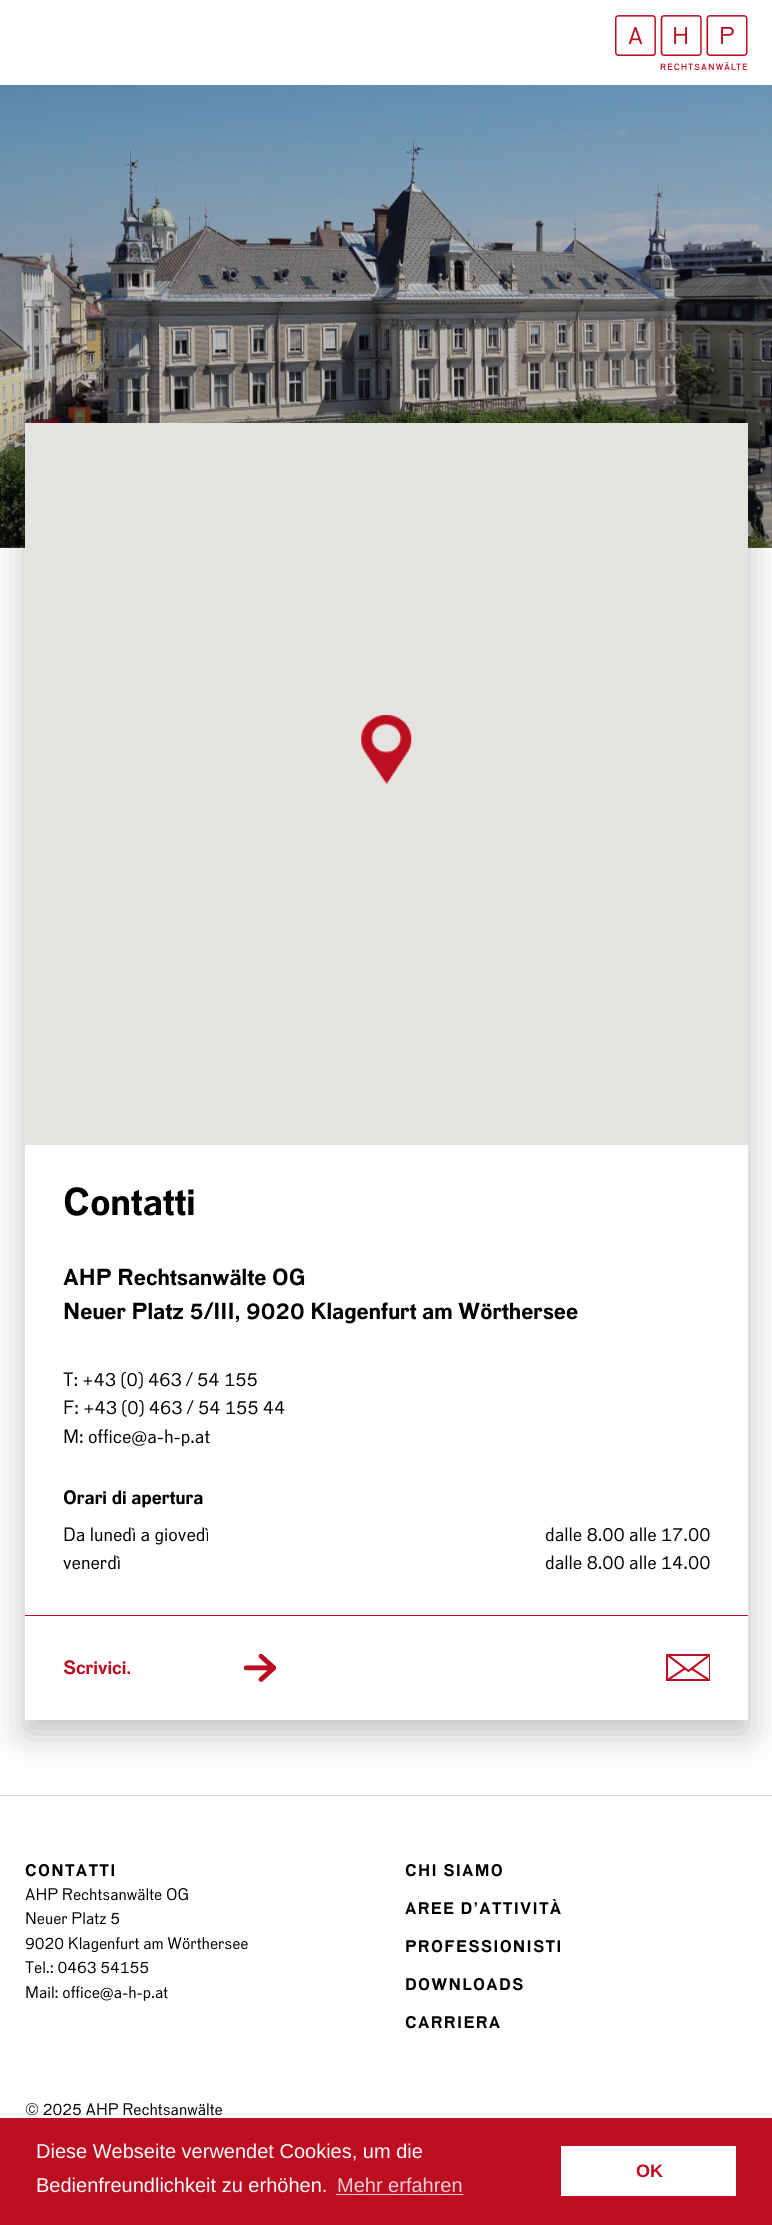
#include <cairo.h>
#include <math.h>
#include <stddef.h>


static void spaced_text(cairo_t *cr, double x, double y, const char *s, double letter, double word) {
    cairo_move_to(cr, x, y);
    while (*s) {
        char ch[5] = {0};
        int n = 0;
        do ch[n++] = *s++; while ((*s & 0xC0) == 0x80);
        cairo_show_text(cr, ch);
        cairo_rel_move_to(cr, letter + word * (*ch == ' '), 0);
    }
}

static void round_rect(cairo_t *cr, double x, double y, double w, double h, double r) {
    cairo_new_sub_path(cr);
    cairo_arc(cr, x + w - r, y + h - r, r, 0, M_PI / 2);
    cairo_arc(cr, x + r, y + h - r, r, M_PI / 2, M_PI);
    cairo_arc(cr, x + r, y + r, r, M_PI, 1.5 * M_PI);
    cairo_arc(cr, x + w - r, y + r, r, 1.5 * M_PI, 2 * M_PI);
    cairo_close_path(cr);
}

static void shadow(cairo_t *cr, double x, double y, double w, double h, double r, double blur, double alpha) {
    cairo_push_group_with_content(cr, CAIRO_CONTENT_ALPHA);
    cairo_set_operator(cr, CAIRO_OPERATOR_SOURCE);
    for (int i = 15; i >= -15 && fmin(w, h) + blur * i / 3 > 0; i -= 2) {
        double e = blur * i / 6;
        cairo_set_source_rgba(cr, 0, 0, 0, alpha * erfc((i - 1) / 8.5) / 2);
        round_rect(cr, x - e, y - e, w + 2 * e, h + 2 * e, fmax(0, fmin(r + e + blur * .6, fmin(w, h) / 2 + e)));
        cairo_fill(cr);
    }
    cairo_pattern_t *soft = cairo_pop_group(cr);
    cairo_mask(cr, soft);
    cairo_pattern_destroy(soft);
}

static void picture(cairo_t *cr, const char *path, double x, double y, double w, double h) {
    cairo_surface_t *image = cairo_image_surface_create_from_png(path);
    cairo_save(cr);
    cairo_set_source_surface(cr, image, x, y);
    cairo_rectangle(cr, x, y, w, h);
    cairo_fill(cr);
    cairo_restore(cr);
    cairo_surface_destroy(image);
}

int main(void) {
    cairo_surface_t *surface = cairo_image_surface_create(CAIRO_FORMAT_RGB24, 772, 2225);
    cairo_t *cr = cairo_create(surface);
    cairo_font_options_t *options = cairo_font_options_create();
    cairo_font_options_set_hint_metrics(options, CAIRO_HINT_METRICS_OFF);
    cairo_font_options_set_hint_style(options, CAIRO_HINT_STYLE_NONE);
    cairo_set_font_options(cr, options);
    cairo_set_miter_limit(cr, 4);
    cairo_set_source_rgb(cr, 1, 1, 1);
    cairo_paint(cr);
    picture(cr, "img1.png", 615, 15, 133, 55);
    picture(cr, "img2.png", 0, 85, 772, 463);
    cairo_set_source_rgb(cr, 0, 0, 0);
    shadow(cr, 25, 435, 723, 1298, 0, 19, 0.25);
    cairo_set_source_rgb(cr, 1, 1, 1);
    cairo_rectangle(cr, 25, 1145, 723, 575);
    cairo_fill(cr);
    cairo_set_source_rgb(cr, 0.898, 0.89, 0.875);
    cairo_rectangle(cr, 25, 423, 723, 722);
    cairo_fill(cr);
    picture(cr, "img3.png", 361, 715, 51, 69);
    cairo_select_font_face(cr, "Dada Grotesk", CAIRO_FONT_SLANT_NORMAL, CAIRO_FONT_WEIGHT_BOLD);
    cairo_set_font_size(cr, 37.5);
    cairo_set_source_rgb(cr, 0, 0, 0);
    cairo_move_to(cr, 63, 1215);
    cairo_show_text(cr, "Contatti");
    cairo_set_font_size(cr, 22.5);
    cairo_move_to(cr, 63, 1285);
    cairo_show_text(cr, "AHP Rechtsanwälte OG");
    cairo_move_to(cr, 63, 1319);
    cairo_show_text(cr, "Neuer Platz 5/III, 9020 Klagenfurt am Wörthersee");
    cairo_select_font_face(cr, "Dada Grotesk", CAIRO_FONT_SLANT_NORMAL, CAIRO_FONT_WEIGHT_NORMAL);
    cairo_set_font_size(cr, 18.75);
    cairo_move_to(cr, 63, 1386);
    cairo_show_text(cr, "T: +43 (0) 463 / 54 155");
    cairo_move_to(cr, 63, 1414);
    cairo_show_text(cr, "F: +43 (0) 463 / 54 155 44");
    cairo_move_to(cr, 63, 1443);
    cairo_show_text(cr, "M: office@a-h-p.at");
    cairo_select_font_face(cr, "Dada Grotesk", CAIRO_FONT_SLANT_NORMAL, CAIRO_FONT_WEIGHT_BOLD);
    cairo_move_to(cr, 63, 1504);
    cairo_show_text(cr, "Orari di apertura");
    cairo_select_font_face(cr, "Dada Grotesk", CAIRO_FONT_SLANT_NORMAL, CAIRO_FONT_WEIGHT_NORMAL);
    cairo_move_to(cr, 63, 1541);
    cairo_show_text(cr, "Da lunedì a giovedì");
    cairo_move_to(cr, 545, 1541);
    cairo_show_text(cr, "dalle 8.00 alle 17.00");
    cairo_move_to(cr, 63, 1569);
    cairo_show_text(cr, "venerdì");
    cairo_move_to(cr, 545, 1569);
    cairo_show_text(cr, "dalle 8.00 alle 14.00");
    cairo_set_source_rgb(cr, 0.737, 0.051, 0.129);
    cairo_rectangle(cr, 25, 1615, 723, 1);
    cairo_fill(cr);
    picture(cr, "img4.png", 244, 1654, 32, 28);
    cairo_select_font_face(cr, "Dada Grotesk", CAIRO_FONT_SLANT_NORMAL, CAIRO_FONT_WEIGHT_BOLD);
    cairo_move_to(cr, 63, 1674);
    cairo_show_text(cr, "Scrivici.");
    cairo_save(cr);
    cairo_rectangle(cr, 666, 1654, 44, 27);
    cairo_clip(cr);
    cairo_rectangle(cr, 667, 1655, 43, 25);
    cairo_stroke(cr);
    cairo_restore(cr);
    cairo_new_path(cr);
    cairo_move_to(cr, 667.5, 1655);
    cairo_line_to(cr, 688.5, 1671);
    cairo_line_to(cr, 709.5, 1655);
    cairo_move_to(cr, 667.5, 1680);
    cairo_line_to(cr, 685, 1668.5);
    cairo_move_to(cr, 709, 1680);
    cairo_line_to(cr, 691.5, 1668.5);
    cairo_set_line_width(cr, 2.1);
    cairo_set_line_join(cr, CAIRO_LINE_JOIN_ROUND);
    cairo_stroke(cr);
    cairo_set_source_rgb(cr, 0.851, 0.851, 0.851);
    cairo_rectangle(cr, 0, 1795, 772, 1);
    cairo_fill(cr);
    cairo_set_font_size(cr, 16.25);
    cairo_set_source_rgb(cr, 0, 0, 0);
    spaced_text(cr, 25, 1876, "CONTATTI", 1.25, 0);
    cairo_select_font_face(cr, "Dada Grotesk", CAIRO_FONT_SLANT_NORMAL, CAIRO_FONT_WEIGHT_NORMAL);
    cairo_move_to(cr, 25, 1900);
    cairo_show_text(cr, "AHP Rechtsanwälte OG");
    cairo_move_to(cr, 25, 1924);
    cairo_show_text(cr, "Neuer Platz 5");
    cairo_move_to(cr, 25, 1949);
    cairo_show_text(cr, "9020 Klagenfurt am Wörthersee");
    cairo_move_to(cr, 25, 1973);
    cairo_show_text(cr, "Tel.: 0463 54155");
    cairo_move_to(cr, 25, 1998);
    cairo_show_text(cr, "Mail: office@a-h-p.at");
    cairo_select_font_face(cr, "Dada Grotesk", CAIRO_FONT_SLANT_NORMAL, CAIRO_FONT_WEIGHT_BOLD);
    spaced_text(cr, 405, 1876, "CHI SIAMO", 1.25, 0);
    spaced_text(cr, 405, 1914, "AREE D’ATTIVITÀ", 1.25, 0);
    spaced_text(cr, 405, 1952, "PROFESSIONISTI", 1.25, 0);
    spaced_text(cr, 405, 1990, "DOWNLOADS", 1.25, 0);
    spaced_text(cr, 405, 2028, "CARRIERA", 1.25, 0);
    cairo_select_font_face(cr, "Dada Grotesk", CAIRO_FONT_SLANT_NORMAL, CAIRO_FONT_WEIGHT_NORMAL);
    cairo_move_to(cr, 25, 2115);
    cairo_show_text(cr, "© 2025 AHP Rechtsanwälte");
    cairo_set_source_rgb(cr, 0.737, 0.051, 0.129);
    cairo_rectangle(cr, 0, 2118, 772, 107);
    cairo_fill(cr);
    cairo_select_font_face(cr, "Liberation Sans", CAIRO_FONT_SLANT_NORMAL, CAIRO_FONT_WEIGHT_NORMAL);
    cairo_set_font_size(cr, 20);
    cairo_set_source_rgb(cr, 1, 1, 1);
    cairo_move_to(cr, 36, 2158);
    cairo_show_text(cr, "Diese Webseite verwendet Cookies, um die");
    cairo_move_to(cr, 36, 2192);
    cairo_show_text(cr, "Bedienfreundlichkeit zu erhöhen.");
    cairo_set_source_rgb(cr, 0.949, 0.812, 0.827);
    cairo_move_to(cr, 337, 2192);
    cairo_show_text(cr, "Mehr erfahren");
    cairo_rectangle(cr, 336, 2194, 127, 1);
    cairo_fill(cr);
    cairo_set_source_rgb(cr, 1, 1, 1);
    cairo_rectangle(cr, 561, 2146, 175, 50);
    cairo_fill(cr);
    cairo_select_font_face(cr, "Liberation Sans", CAIRO_FONT_SLANT_NORMAL, CAIRO_FONT_WEIGHT_BOLD);
    cairo_set_font_size(cr, 18);
    cairo_set_source_rgb(cr, 0.737, 0.051, 0.129);
    cairo_move_to(cr, 636, 2177);
    cairo_show_text(cr, "OK");
    cairo_surface_write_to_png(surface, "page.png");
    cairo_font_options_destroy(options);
    cairo_destroy(cr);
    cairo_surface_destroy(surface);
    return 0;
}
